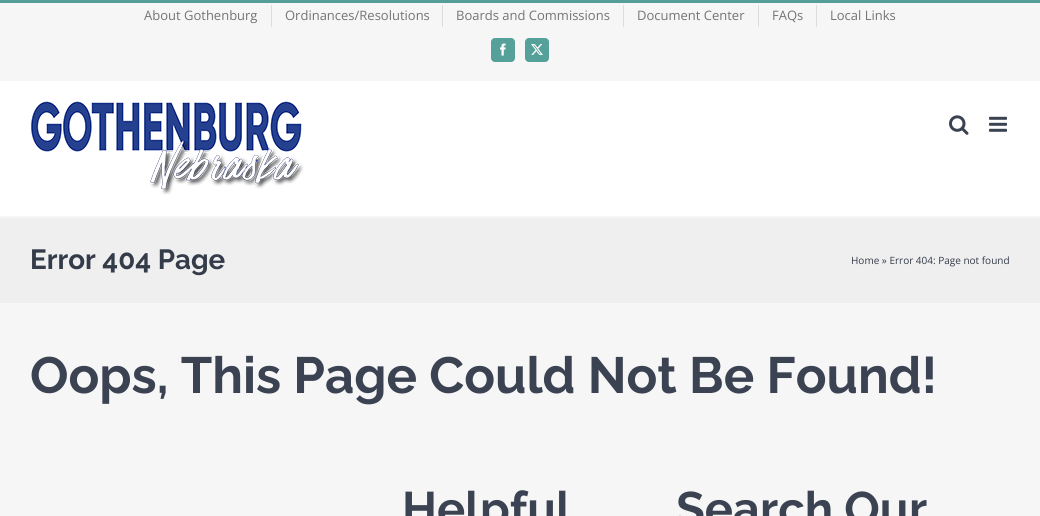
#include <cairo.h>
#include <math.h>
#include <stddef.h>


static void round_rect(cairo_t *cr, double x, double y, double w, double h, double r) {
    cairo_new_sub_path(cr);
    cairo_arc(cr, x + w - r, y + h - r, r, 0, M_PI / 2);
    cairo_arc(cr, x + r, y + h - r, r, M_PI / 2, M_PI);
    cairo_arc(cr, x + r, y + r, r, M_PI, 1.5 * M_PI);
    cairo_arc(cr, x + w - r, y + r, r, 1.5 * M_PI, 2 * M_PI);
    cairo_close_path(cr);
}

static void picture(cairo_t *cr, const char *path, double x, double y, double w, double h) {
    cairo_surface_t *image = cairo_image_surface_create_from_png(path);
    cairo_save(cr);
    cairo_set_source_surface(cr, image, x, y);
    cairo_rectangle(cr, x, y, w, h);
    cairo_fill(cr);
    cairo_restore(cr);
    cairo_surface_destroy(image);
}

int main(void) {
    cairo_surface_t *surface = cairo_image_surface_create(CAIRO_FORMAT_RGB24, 1040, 516);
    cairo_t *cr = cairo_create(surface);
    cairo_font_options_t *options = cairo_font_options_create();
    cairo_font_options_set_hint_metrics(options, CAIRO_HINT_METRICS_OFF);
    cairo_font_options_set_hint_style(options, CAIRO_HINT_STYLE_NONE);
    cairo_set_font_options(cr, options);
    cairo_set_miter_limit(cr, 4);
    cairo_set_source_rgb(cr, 0.961, 0.961, 0.961);
    cairo_paint(cr);
    cairo_set_source_rgb(cr, 0.329, 0.624, 0.592);
    cairo_rectangle(cr, 0, 0, 1040, 3);
    cairo_fill(cr);
    cairo_select_font_face(cr, "Open Sans", CAIRO_FONT_SLANT_NORMAL, CAIRO_FONT_WEIGHT_NORMAL);
    cairo_set_font_size(cr, 13);
    cairo_set_source_rgb(cr, 0.455, 0.455, 0.455);
    cairo_move_to(cr, 144, 20);
    cairo_show_text(cr, "About Gothenburg");
    cairo_set_source_rgb(cr, 0.867, 0.867, 0.867);
    cairo_rectangle(cr, 271, 5, 1, 22);
    cairo_fill(cr);
    cairo_set_source_rgb(cr, 0.455, 0.455, 0.455);
    cairo_move_to(cr, 285, 20);
    cairo_show_text(cr, "Ordinances/Resolutions");
    cairo_set_source_rgb(cr, 0.867, 0.867, 0.867);
    cairo_rectangle(cr, 442, 5, 1, 22);
    cairo_fill(cr);
    cairo_set_source_rgb(cr, 0.455, 0.455, 0.455);
    cairo_move_to(cr, 456, 20);
    cairo_show_text(cr, "Boards and Commissions");
    cairo_set_source_rgb(cr, 0.867, 0.867, 0.867);
    cairo_rectangle(cr, 623, 5, 1, 22);
    cairo_fill(cr);
    cairo_set_source_rgb(cr, 0.455, 0.455, 0.455);
    cairo_move_to(cr, 637, 20);
    cairo_show_text(cr, "Document Center");
    cairo_set_source_rgb(cr, 0.867, 0.867, 0.867);
    cairo_rectangle(cr, 758, 5, 1, 22);
    cairo_fill(cr);
    cairo_set_source_rgb(cr, 0.455, 0.455, 0.455);
    cairo_move_to(cr, 772, 20);
    cairo_show_text(cr, "FAQs");
    cairo_set_source_rgb(cr, 0.867, 0.867, 0.867);
    cairo_rectangle(cr, 816, 5, 1, 22);
    cairo_fill(cr);
    cairo_set_source_rgb(cr, 0.455, 0.455, 0.455);
    cairo_move_to(cr, 830, 20);
    cairo_show_text(cr, "Local Links");
    cairo_set_source_rgb(cr, 0.333, 0.627, 0.596);
    round_rect(cr, 491.5, 38.5, 23, 23, 3.5);
    cairo_fill_preserve(cr);
    cairo_set_line_width(cr, 1);
    cairo_stroke(cr);
    picture(cr, "img1.png", 500, 43, 6, 13);
    round_rect(cr, 525.5, 38.5, 23, 23, 3.5);
    cairo_fill_preserve(cr);
    cairo_stroke(cr);
    picture(cr, "img2.png", 531, 44, 12, 11);
    cairo_set_source_rgb(cr, 1, 1, 1);
    cairo_rectangle(cr, 0, 81, 1040, 135);
    cairo_fill(cr);
    picture(cr, "img3.png", 31, 101, 273, 94);
    picture(cr, "img4.png", 949, 115, 20, 20);
    picture(cr, "img5.png", 989, 116, 18, 16);
    cairo_set_source_rgb(cr, 0.937, 0.937, 0.937);
    cairo_rectangle(cr, 0, 218, 1040, 85);
    cairo_fill(cr);
    cairo_select_font_face(cr, "Raleway", CAIRO_FONT_SLANT_NORMAL, CAIRO_FONT_WEIGHT_BOLD);
    cairo_set_font_size(cr, 27.75);
    cairo_set_source_rgb(cr, 0.204, 0.231, 0.286);
    cairo_move_to(cr, 30, 269);
    cairo_show_text(cr, "Error 404 Page");
    cairo_select_font_face(cr, "Open Sans", CAIRO_FONT_SLANT_NORMAL, CAIRO_FONT_WEIGHT_NORMAL);
    cairo_set_font_size(cr, 10);
    cairo_move_to(cr, 851, 264);
    cairo_show_text(cr, "Home » Error 404: Page not found");
    cairo_select_font_face(cr, "Raleway", CAIRO_FONT_SLANT_NORMAL, CAIRO_FONT_WEIGHT_BOLD);
    cairo_set_font_size(cr, 50.9);
    cairo_set_source_rgb(cr, 0.231, 0.259, 0.318);
    cairo_move_to(cr, 30, 393);
    cairo_show_text(cr, "Oops, This Page Could Not Be Found!");
    cairo_set_font_size(cr, 47);
    cairo_move_to(cr, 402, 525);
    cairo_show_text(cr, "Helpful");
    cairo_move_to(cr, 676, 525);
    cairo_show_text(cr, "Search Our");
    cairo_surface_write_to_png(surface, "page.png");
    cairo_font_options_destroy(options);
    cairo_destroy(cr);
    cairo_surface_destroy(surface);
    return 0;
}
